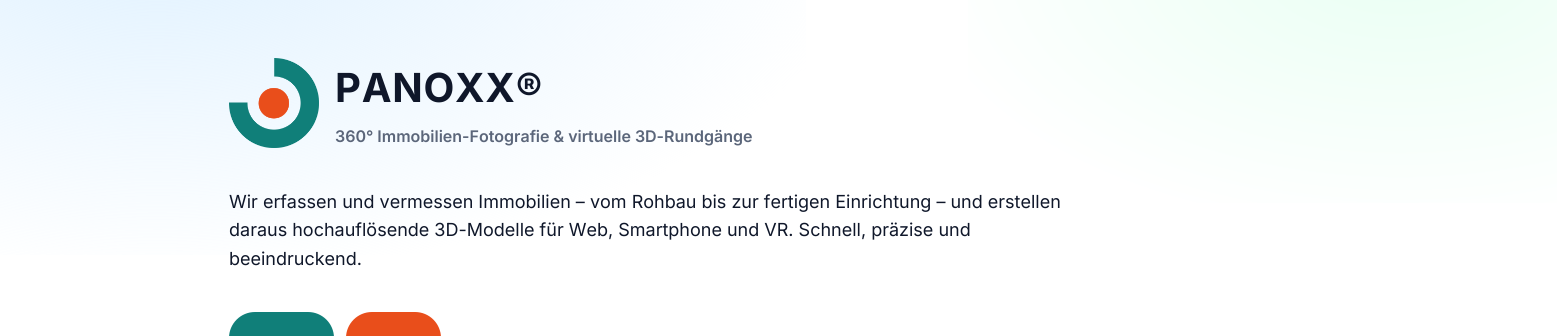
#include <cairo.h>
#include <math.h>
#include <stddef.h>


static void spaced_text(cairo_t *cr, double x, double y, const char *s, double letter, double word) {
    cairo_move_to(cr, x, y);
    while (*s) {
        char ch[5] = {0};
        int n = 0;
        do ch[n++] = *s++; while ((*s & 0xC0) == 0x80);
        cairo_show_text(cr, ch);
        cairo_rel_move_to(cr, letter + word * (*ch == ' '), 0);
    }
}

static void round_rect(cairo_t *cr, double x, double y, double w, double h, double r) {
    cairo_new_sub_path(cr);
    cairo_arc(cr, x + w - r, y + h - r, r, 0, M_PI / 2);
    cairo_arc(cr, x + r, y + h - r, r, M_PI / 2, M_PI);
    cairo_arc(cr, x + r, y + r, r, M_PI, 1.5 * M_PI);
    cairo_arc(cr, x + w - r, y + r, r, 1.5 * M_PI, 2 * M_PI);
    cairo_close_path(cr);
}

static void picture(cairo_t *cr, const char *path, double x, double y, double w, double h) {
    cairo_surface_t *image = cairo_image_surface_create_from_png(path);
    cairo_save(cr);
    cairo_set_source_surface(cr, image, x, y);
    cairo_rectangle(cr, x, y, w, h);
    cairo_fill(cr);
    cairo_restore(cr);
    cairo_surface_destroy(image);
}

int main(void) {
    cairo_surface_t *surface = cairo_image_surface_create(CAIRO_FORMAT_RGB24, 1557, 336);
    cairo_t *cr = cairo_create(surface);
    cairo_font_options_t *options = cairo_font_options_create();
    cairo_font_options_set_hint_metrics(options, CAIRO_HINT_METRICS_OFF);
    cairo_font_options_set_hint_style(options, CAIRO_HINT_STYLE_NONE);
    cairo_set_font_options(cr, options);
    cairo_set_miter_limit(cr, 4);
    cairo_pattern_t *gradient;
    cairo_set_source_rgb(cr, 1, 1, 1);
    cairo_paint(cr);
    gradient = cairo_pattern_create_radial(0, 0, 0, 0, 0, 1);
    cairo_pattern_set_matrix(gradient, &(cairo_matrix_t){1.0 / 900, 0, 0, 1.0 / 500, -1.0 * 1401 / 900, -1.0 * -41 / 500});
    cairo_pattern_add_color_stop_rgba(gradient, 0, 0.914, 1, 0.953, 1);
    cairo_pattern_add_color_stop_rgba(gradient, 0.55, 1, 1, 1, 1);
    cairo_set_source(cr, gradient);
    cairo_pattern_destroy(gradient);
    cairo_rectangle(cr, 968, 0, 589, 203);
    cairo_fill(cr);
    gradient = cairo_pattern_create_radial(0, 0, 0, 0, 0, 1);
    cairo_pattern_set_matrix(gradient, &(cairo_matrix_t){1.0 / 1200, 0, 0, 1.0 / 600, -1.0 * 156 / 1200, -1.0 * -82 / 600});
    cairo_pattern_add_color_stop_rgba(gradient, 0, 0.875, 0.945, 1, 1);
    cairo_pattern_add_color_stop_rgba(gradient, 0.6, 0.875, 0.945, 1, 0);
    cairo_set_source(cr, gradient);
    cairo_pattern_destroy(gradient);
    cairo_rectangle(cr, 0, 0, 806, 255);
    cairo_fill(cr);
    picture(cr, "img1.png", 229, 58, 90, 90);
    cairo_select_font_face(cr, "Inter", CAIRO_FONT_SLANT_NORMAL, CAIRO_FONT_WEIGHT_BOLD);
    cairo_set_font_size(cr, 40);
    cairo_set_source_rgb(cr, 0.059, 0.09, 0.165);
    spaced_text(cr, 335, 102, "PANOXX®", 0.75, 0);
    cairo_select_font_face(cr, "Inter SemiBold", CAIRO_FONT_SLANT_NORMAL, CAIRO_FONT_WEIGHT_NORMAL);
    cairo_set_font_size(cr, 16);
    cairo_set_source_rgb(cr, 0.357, 0.4, 0.478);
    cairo_move_to(cr, 335, 142);
    cairo_show_text(cr, "360° Immobilien-Fotografie & virtuelle 3D-Rundgänge");
    cairo_select_font_face(cr, "Inter", CAIRO_FONT_SLANT_NORMAL, CAIRO_FONT_WEIGHT_NORMAL);
    cairo_set_font_size(cr, 18);
    cairo_set_source_rgb(cr, 0.059, 0.09, 0.165);
    cairo_move_to(cr, 229, 208);
    cairo_show_text(cr, "Wir erfassen und vermessen Immobilien – vom Rohbau bis zur fertigen Einrichtung – und erstellen");
    cairo_move_to(cr, 229, 236);
    cairo_show_text(cr, "daraus hochauflösende 3D-Modelle für Web, Smartphone und VR. Schnell, präzise und");
    cairo_move_to(cr, 229, 265);
    cairo_show_text(cr, "beeindruckend.");
    cairo_set_source_rgb(cr, 0.063, 0.498, 0.475);
    round_rect(cr, 229, 312, 105, 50, 26);
    cairo_fill(cr);
    cairo_set_source_rgb(cr, 0.914, 0.306, 0.106);
    round_rect(cr, 346, 312, 95, 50, 26);
    cairo_fill(cr);
    cairo_surface_write_to_png(surface, "page.png");
    cairo_font_options_destroy(options);
    cairo_destroy(cr);
    cairo_surface_destroy(surface);
    return 0;
}
